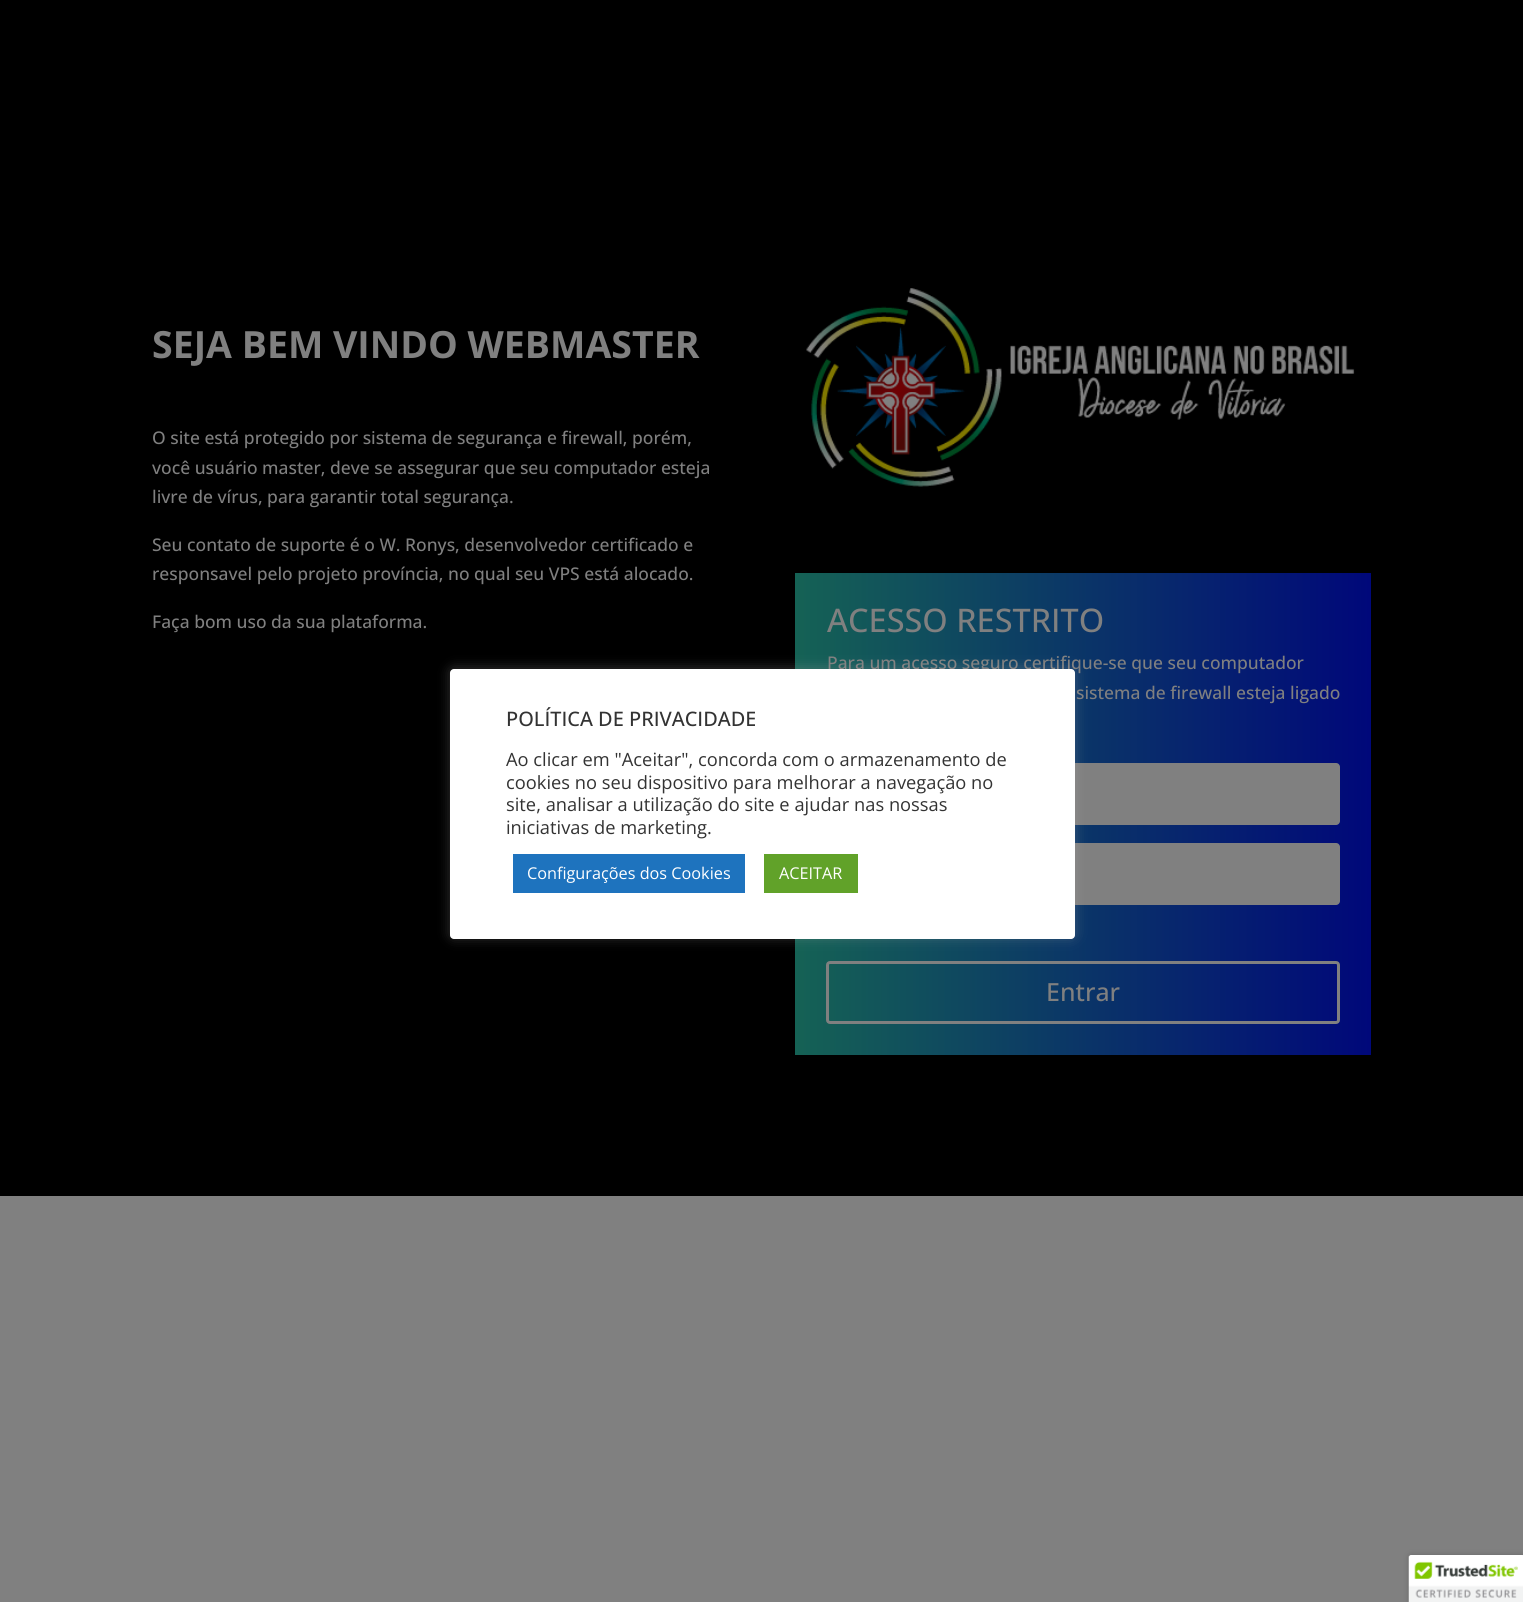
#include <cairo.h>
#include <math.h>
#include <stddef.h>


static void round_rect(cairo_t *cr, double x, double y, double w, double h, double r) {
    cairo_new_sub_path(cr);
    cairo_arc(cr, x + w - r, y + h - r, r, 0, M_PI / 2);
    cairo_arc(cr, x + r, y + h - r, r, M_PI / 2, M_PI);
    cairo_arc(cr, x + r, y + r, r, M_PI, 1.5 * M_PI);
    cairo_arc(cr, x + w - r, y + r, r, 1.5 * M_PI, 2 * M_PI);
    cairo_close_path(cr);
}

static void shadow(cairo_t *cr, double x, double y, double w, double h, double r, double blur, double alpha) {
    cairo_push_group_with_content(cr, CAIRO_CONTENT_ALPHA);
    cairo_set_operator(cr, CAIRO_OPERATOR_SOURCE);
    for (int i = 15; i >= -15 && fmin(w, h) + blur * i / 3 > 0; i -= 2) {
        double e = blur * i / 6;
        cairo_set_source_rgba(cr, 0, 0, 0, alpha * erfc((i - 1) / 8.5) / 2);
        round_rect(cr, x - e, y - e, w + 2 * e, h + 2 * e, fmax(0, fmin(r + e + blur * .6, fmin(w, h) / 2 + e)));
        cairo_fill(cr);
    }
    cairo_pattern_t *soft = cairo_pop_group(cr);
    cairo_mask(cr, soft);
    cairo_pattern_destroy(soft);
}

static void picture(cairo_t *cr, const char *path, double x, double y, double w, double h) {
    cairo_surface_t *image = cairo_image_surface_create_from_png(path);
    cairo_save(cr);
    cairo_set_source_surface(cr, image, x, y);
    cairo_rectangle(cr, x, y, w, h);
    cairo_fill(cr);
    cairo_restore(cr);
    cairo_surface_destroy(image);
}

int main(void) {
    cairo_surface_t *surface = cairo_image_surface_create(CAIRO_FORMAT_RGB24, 1523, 1602);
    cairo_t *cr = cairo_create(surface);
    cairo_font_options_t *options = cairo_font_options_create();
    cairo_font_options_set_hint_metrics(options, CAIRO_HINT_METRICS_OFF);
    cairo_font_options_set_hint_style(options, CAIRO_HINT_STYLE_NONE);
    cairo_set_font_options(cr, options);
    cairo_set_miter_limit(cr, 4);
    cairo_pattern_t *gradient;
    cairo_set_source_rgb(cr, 0.502, 0.502, 0.502);
    cairo_paint(cr);
    cairo_set_source_rgb(cr, 0, 0, 0);
    cairo_rectangle(cr, 0, 0, 1523, 1196);
    cairo_fill(cr);
    cairo_select_font_face(cr, "Open Sans", CAIRO_FONT_SLANT_NORMAL, CAIRO_FONT_WEIGHT_BOLD);
    cairo_set_font_size(cr, 37.5);
    cairo_set_source_rgb(cr, 0.502, 0.502, 0.502);
    cairo_move_to(cr, 152, 358);
    cairo_show_text(cr, "SEJA BEM VINDO WEBMASTER");
    cairo_select_font_face(cr, "Open Sans Medium", CAIRO_FONT_SLANT_NORMAL, CAIRO_FONT_WEIGHT_NORMAL);
    cairo_set_font_size(cr, 17.5);
    cairo_move_to(cr, 152, 444);
    cairo_show_text(cr, "O site está protegido por sistema de segurança e firewall, porém,");
    cairo_move_to(cr, 152, 474);
    cairo_show_text(cr, "você usuário master, deve se assegurar que seu computador esteja");
    cairo_move_to(cr, 152, 503);
    cairo_show_text(cr, "livre de vírus, para garantir total segurança.");
    cairo_move_to(cr, 152, 551);
    cairo_show_text(cr, "Seu contato de suporte é o W. Ronys, desenvolvedor certificado e");
    cairo_move_to(cr, 152, 580);
    cairo_show_text(cr, "responsavel pelo projeto província, no qual seu VPS está alocado.");
    cairo_move_to(cr, 152, 628);
    cairo_show_text(cr, "Faça bom uso da sua plataforma.");
    picture(cr, "img1.png", 806, 288, 549, 199);
    gradient = cairo_pattern_create_linear(1371, 814, 795, 814);
    cairo_pattern_add_color_stop_rgba(gradient, 0, 0, 0.031, 0.478, 1);
    cairo_pattern_add_color_stop_rgba(gradient, 1, 0.082, 0.384, 0.333, 1);
    cairo_set_source(cr, gradient);
    cairo_pattern_destroy(gradient);
    cairo_rectangle(cr, 795, 573, 576, 482);
    cairo_fill(cr);
    cairo_set_font_size(cr, 32.5);
    cairo_set_source_rgb(cr, 0.502, 0.502, 0.502);
    cairo_move_to(cr, 827, 632);
    cairo_show_text(cr, "ACESSO RESTRITO");
    cairo_set_font_size(cr, 17.5);
    cairo_move_to(cr, 827, 669);
    cairo_show_text(cr, "Para um acesso seguro certifique-se que seu computador");
    cairo_move_to(cr, 1076, 699);
    cairo_show_text(cr, "sistema de firewall esteja ligado");
    round_rect(cr, 826, 763, 514, 62, 4);
    cairo_fill(cr);
    round_rect(cr, 826, 843, 514, 62, 4);
    cairo_fill(cr);
    round_rect(cr, 827.5, 962.5, 511, 60, 2.5);
    cairo_set_line_width(cr, 3);
    cairo_stroke(cr);
    cairo_set_font_size(cr, 25);
    cairo_move_to(cr, 1046, 1001);
    cairo_show_text(cr, "Entrar");
    cairo_set_source_rgb(cr, 0.675, 0.671, 0.671);
    shadow(cr, 450, 668, 625, 270, 4, 6, 0.3);
    cairo_set_source_rgb(cr, 1, 1, 1);
    round_rect(cr, 450, 669, 625, 270, 4);
    cairo_fill(cr);
    cairo_set_font_size(cr, 20);
    cairo_set_source_rgb(cr, 0.2, 0.2, 0.2);
    cairo_move_to(cr, 506, 726);
    cairo_show_text(cr, "POLÍTICA DE PRIVACIDADE");
    cairo_select_font_face(cr, "Open Sans", CAIRO_FONT_SLANT_NORMAL, CAIRO_FONT_WEIGHT_NORMAL);
    cairo_set_font_size(cr, 18.3);
    cairo_move_to(cr, 506, 766);
    cairo_show_text(cr, "Ao clicar em \"Aceitar\", concorda com o armazenamento de");
    cairo_move_to(cr, 506, 789);
    cairo_show_text(cr, "cookies no seu dispositivo para melhorar a navegação no");
    cairo_move_to(cr, 506, 811);
    cairo_show_text(cr, "site, analisar a utilização do site e ajudar nas nossas");
    cairo_move_to(cr, 506, 834);
    cairo_show_text(cr, "iniciativas de marketing.");
    cairo_set_source_rgb(cr, 0.118, 0.451, 0.745);
    cairo_rectangle(cr, 513, 854, 232, 39);
    cairo_fill(cr);
    cairo_set_font_size(cr, 16.25);
    cairo_set_source_rgb(cr, 1, 1, 1);
    cairo_move_to(cr, 527, 879);
    cairo_show_text(cr, "Configurações dos Cookies");
    cairo_set_source_rgb(cr, 0.38, 0.635, 0.161);
    cairo_rectangle(cr, 764, 854, 94, 39);
    cairo_fill(cr);
    cairo_set_source_rgb(cr, 1, 1, 1);
    cairo_move_to(cr, 779, 879);
    cairo_show_text(cr, "ACEITAR");
    cairo_set_source_rgb(cr, 0, 0, 0);
    shadow(cr, 1409, 1555, 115, 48, 2.5, 3, 0.2);
    cairo_set_source_rgb(cr, 1, 1, 1);
    cairo_new_path(cr);
    cairo_move_to(cr, 1411.5, 1555);
    cairo_line_to(cr, 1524, 1555);
    cairo_line_to(cr, 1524, 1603);
    cairo_line_to(cr, 1409, 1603);
    cairo_line_to(cr, 1409, 1557.5);
    cairo_curve_to(cr, 1409, 1556, 1410, 1555, 1411.5, 1555);
    cairo_close_path(cr);
    cairo_fill(cr);
    picture(cr, "img2.png", 1408, 1555, 115, 47);
    cairo_surface_write_to_png(surface, "page.png");
    cairo_font_options_destroy(options);
    cairo_destroy(cr);
    cairo_surface_destroy(surface);
    return 0;
}
